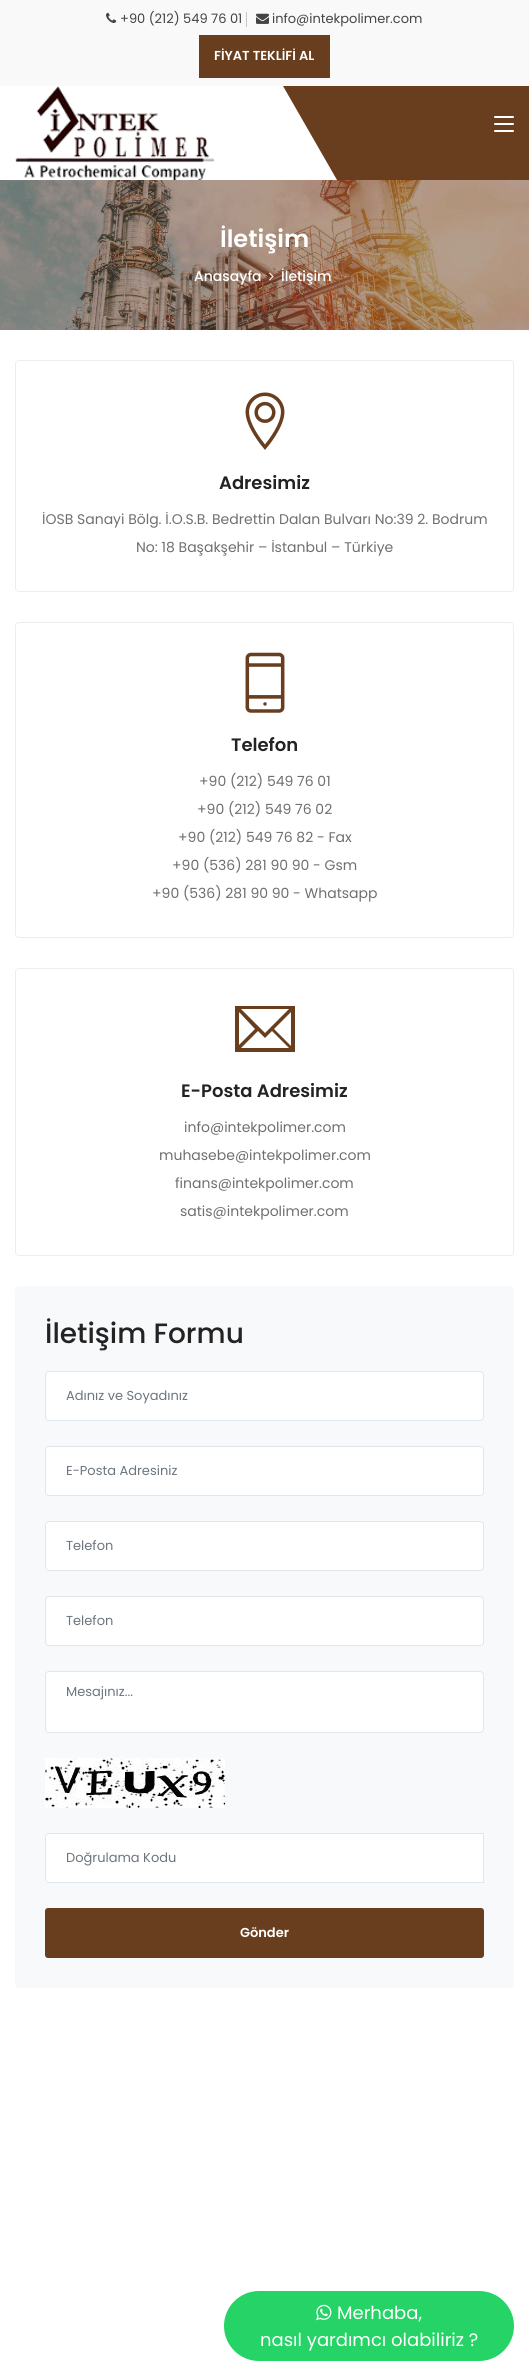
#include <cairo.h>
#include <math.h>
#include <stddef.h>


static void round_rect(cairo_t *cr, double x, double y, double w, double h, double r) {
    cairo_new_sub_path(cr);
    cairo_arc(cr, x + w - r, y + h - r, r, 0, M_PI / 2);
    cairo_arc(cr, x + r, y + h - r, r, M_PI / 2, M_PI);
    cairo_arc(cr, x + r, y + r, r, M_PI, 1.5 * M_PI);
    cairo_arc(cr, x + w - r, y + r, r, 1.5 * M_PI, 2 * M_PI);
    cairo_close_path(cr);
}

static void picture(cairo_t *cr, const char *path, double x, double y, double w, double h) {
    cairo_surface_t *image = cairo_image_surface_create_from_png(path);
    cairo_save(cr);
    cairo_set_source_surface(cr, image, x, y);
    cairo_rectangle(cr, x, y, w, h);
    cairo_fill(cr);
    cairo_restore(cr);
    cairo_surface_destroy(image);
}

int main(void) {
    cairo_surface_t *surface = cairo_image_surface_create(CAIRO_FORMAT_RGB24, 529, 2376);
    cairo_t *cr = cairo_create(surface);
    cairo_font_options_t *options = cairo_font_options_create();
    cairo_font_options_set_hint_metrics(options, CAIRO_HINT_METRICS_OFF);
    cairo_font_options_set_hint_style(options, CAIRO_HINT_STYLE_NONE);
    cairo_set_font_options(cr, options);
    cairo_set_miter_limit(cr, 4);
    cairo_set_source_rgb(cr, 0.973, 0.973, 0.973);
    cairo_paint(cr);
    picture(cr, "img1.png", 106, 12, 11, 11);
    cairo_select_font_face(cr, "Poppins", CAIRO_FONT_SLANT_NORMAL, CAIRO_FONT_WEIGHT_NORMAL);
    cairo_set_font_size(cr, 13);
    cairo_set_source_rgb(cr, 0.267, 0.267, 0.267);
    cairo_move_to(cr, 120, 23);
    cairo_show_text(cr, "+90 (212) 549 76 01");
    cairo_set_source_rgb(cr, 0.776, 0.776, 0.776);
    cairo_rectangle(cr, 246, 12, 1, 15);
    cairo_fill(cr);
    picture(cr, "img2.png", 256, 13, 13, 11);
    cairo_set_source_rgb(cr, 0.267, 0.267, 0.267);
    cairo_move_to(cr, 272, 23);
    cairo_show_text(cr, "info@intekpolimer.com");
    cairo_set_source_rgb(cr, 0.408, 0.243, 0.122);
    cairo_rectangle(cr, 199, 35, 131, 43);
    cairo_fill(cr);
    cairo_select_font_face(cr, "Poppins SemiBold", CAIRO_FONT_SLANT_NORMAL, CAIRO_FONT_WEIGHT_NORMAL);
    cairo_set_source_rgb(cr, 1, 1, 1);
    cairo_move_to(cr, 214, 60);
    cairo_show_text(cr, "FİYAT TEKLİFİ AL");
    cairo_set_source_rgb(cr, 0.408, 0.243, 0.122);
    cairo_rectangle(cr, 283, 86, 246, 94);
    cairo_fill(cr);
    cairo_set_source_rgb(cr, 1, 1, 1);
    cairo_new_path(cr);
    cairo_move_to(cr, 123, 86);
    cairo_line_to(cr, 283, 86);
    cairo_line_to(cr, 337, 180);
    cairo_line_to(cr, 177, 180);
    cairo_close_path(cr);
    cairo_fill(cr);
    cairo_rectangle(cr, 0, 86, 177, 94);
    cairo_fill(cr);
    picture(cr, "img3.png", 15, 86, 200, 94);
    round_rect(cr, 494, 116, 20, 2, 1);
    cairo_fill(cr);
    round_rect(cr, 494, 123, 20, 2, 1);
    cairo_fill(cr);
    round_rect(cr, 494, 130, 20, 2, 1);
    cairo_fill(cr);
    cairo_rectangle(cr, 0, 330, 529, 2046);
    cairo_fill(cr);
    picture(cr, "img4.png", 0, 180, 529, 150);
    cairo_set_font_size(cr, 24);
    cairo_move_to(cr, 220, 247);
    cairo_show_text(cr, "İletişim");
    cairo_select_font_face(cr, "Poppins Medium", CAIRO_FONT_SLANT_NORMAL, CAIRO_FONT_WEIGHT_NORMAL);
    cairo_set_font_size(cr, 14);
    cairo_move_to(cr, 194, 281);
    cairo_show_text(cr, "Anasayfa");
    picture(cr, "img5.png", 269, 272, 5, 9);
    cairo_move_to(cr, 281, 281);
    cairo_show_text(cr, "İletişim");
    round_rect(cr, 15.5, 360.5, 498, 231, 3.5);
    cairo_set_source_rgb(cr, 0.922, 0.929, 0.949);
    cairo_set_line_width(cr, 1);
    cairo_stroke(cr);
    picture(cr, "img6.png", 245, 392, 40, 58);
    cairo_select_font_face(cr, "Poppins SemiBold", CAIRO_FONT_SLANT_NORMAL, CAIRO_FONT_WEIGHT_NORMAL);
    cairo_set_font_size(cr, 18);
    cairo_set_source_rgb(cr, 0.137, 0.137, 0.137);
    cairo_move_to(cr, 219, 489);
    cairo_show_text(cr, "Adresimiz");
    cairo_select_font_face(cr, "Poppins", CAIRO_FONT_SLANT_NORMAL, CAIRO_FONT_WEIGHT_NORMAL);
    cairo_set_font_size(cr, 14);
    cairo_set_source_rgb(cr, 0.435, 0.435, 0.435);
    cairo_move_to(cr, 42, 524);
    cairo_show_text(cr, "İOSB Sanayi Bölg. İ.O.S.B. Bedrettin Dalan Bulvarı No:39 2. Bodrum");
    cairo_move_to(cr, 136, 552);
    cairo_show_text(cr, "No: 18 Başakşehir – İstanbul – Türkiye");
    round_rect(cr, 15.5, 622.5, 498, 315, 3.5);
    cairo_set_source_rgb(cr, 0.922, 0.929, 0.949);
    cairo_stroke(cr);
    picture(cr, "img7.png", 245, 652, 40, 61);
    cairo_select_font_face(cr, "Poppins SemiBold", CAIRO_FONT_SLANT_NORMAL, CAIRO_FONT_WEIGHT_NORMAL);
    cairo_set_font_size(cr, 18);
    cairo_set_source_rgb(cr, 0.137, 0.137, 0.137);
    cairo_move_to(cr, 231, 751);
    cairo_show_text(cr, "Telefon");
    cairo_select_font_face(cr, "Poppins", CAIRO_FONT_SLANT_NORMAL, CAIRO_FONT_WEIGHT_NORMAL);
    cairo_set_font_size(cr, 14);
    cairo_set_source_rgb(cr, 0.435, 0.435, 0.435);
    cairo_move_to(cr, 199, 786);
    cairo_show_text(cr, "+90 (212) 549 76 01");
    cairo_move_to(cr, 197, 814);
    cairo_show_text(cr, "+90 (212) 549 76 02");
    cairo_move_to(cr, 178, 842);
    cairo_show_text(cr, "+90 (212) 549 76 82 - Fax");
    cairo_move_to(cr, 172, 870);
    cairo_show_text(cr, "+90 (536) 281 90 90 - Gsm");
    cairo_move_to(cr, 152, 898);
    cairo_show_text(cr, "+90 (536) 281 90 90 - Whatsapp");
    round_rect(cr, 15.5, 968.5, 498, 287, 3.5);
    cairo_set_source_rgb(cr, 0.922, 0.929, 0.949);
    cairo_stroke(cr);
    cairo_set_source_rgb(cr, 0.408, 0.243, 0.122);
    cairo_new_path(cr);
    cairo_move_to(cr, 235, 1006);
    cairo_line_to(cr, 235, 1052);
    cairo_line_to(cr, 295, 1052);
    cairo_line_to(cr, 295, 1006);
    cairo_close_path(cr);
    cairo_move_to(cr, 265, 1033);
    cairo_line_to(cr, 241, 1009);
    cairo_line_to(cr, 289, 1009);
    cairo_close_path(cr);
    cairo_move_to(cr, 255, 1029);
    cairo_line_to(cr, 239, 1045);
    cairo_line_to(cr, 239, 1012);
    cairo_close_path(cr);
    cairo_move_to(cr, 258, 1031);
    cairo_line_to(cr, 265, 1038);
    cairo_line_to(cr, 272, 1031);
    cairo_line_to(cr, 289, 1048);
    cairo_line_to(cr, 241, 1048);
    cairo_close_path(cr);
    cairo_move_to(cr, 274, 1029);
    cairo_line_to(cr, 291, 1012);
    cairo_line_to(cr, 291, 1046);
    cairo_close_path(cr);
    cairo_fill(cr);
    cairo_select_font_face(cr, "Poppins SemiBold", CAIRO_FONT_SLANT_NORMAL, CAIRO_FONT_WEIGHT_NORMAL);
    cairo_set_font_size(cr, 18);
    cairo_set_source_rgb(cr, 0.137, 0.137, 0.137);
    cairo_move_to(cr, 181, 1097);
    cairo_show_text(cr, "E-Posta Adresimiz");
    cairo_select_font_face(cr, "Poppins", CAIRO_FONT_SLANT_NORMAL, CAIRO_FONT_WEIGHT_NORMAL);
    cairo_set_font_size(cr, 14);
    cairo_set_source_rgb(cr, 0.435, 0.435, 0.435);
    cairo_move_to(cr, 184, 1132);
    cairo_show_text(cr, "info@intekpolimer.com");
    cairo_move_to(cr, 159, 1160);
    cairo_show_text(cr, "muhasebe@intekpolimer.com");
    cairo_move_to(cr, 175, 1188);
    cairo_show_text(cr, "finans@intekpolimer.com");
    cairo_move_to(cr, 180, 1216);
    cairo_show_text(cr, "satis@intekpolimer.com");
    cairo_set_source_rgb(cr, 0.969, 0.976, 0.984);
    round_rect(cr, 15, 1286, 499, 702, 4);
    cairo_fill(cr);
    cairo_select_font_face(cr, "Poppins Medium", CAIRO_FONT_SLANT_NORMAL, CAIRO_FONT_WEIGHT_NORMAL);
    cairo_set_font_size(cr, 28);
    cairo_set_source_rgb(cr, 0.137, 0.137, 0.137);
    cairo_move_to(cr, 45, 1343);
    cairo_show_text(cr, "İletişim Formu");
    cairo_set_source_rgb(cr, 1, 1, 1);
    round_rect(cr, 45.5, 1371.5, 438, 49, 3.5);
    cairo_fill_preserve(cr);
    cairo_set_source_rgb(cr, 0.882, 0.902, 0.922);
    cairo_stroke(cr);
    cairo_select_font_face(cr, "Poppins", CAIRO_FONT_SLANT_NORMAL, CAIRO_FONT_WEIGHT_NORMAL);
    cairo_set_font_size(cr, 13);
    cairo_set_source_rgb(cr, 0.424, 0.459, 0.49);
    cairo_move_to(cr, 66, 1400);
    cairo_show_text(cr, "Adınız ve Soyadınız");
    cairo_set_source_rgb(cr, 1, 1, 1);
    round_rect(cr, 45.5, 1446.5, 438, 49, 3.5);
    cairo_fill_preserve(cr);
    cairo_set_source_rgb(cr, 0.882, 0.902, 0.922);
    cairo_stroke(cr);
    cairo_set_source_rgb(cr, 0.424, 0.459, 0.49);
    cairo_move_to(cr, 66, 1475);
    cairo_show_text(cr, "E-Posta Adresiniz");
    cairo_set_source_rgb(cr, 1, 1, 1);
    round_rect(cr, 45.5, 1521.5, 438, 49, 3.5);
    cairo_fill_preserve(cr);
    cairo_set_source_rgb(cr, 0.882, 0.902, 0.922);
    cairo_stroke(cr);
    cairo_set_source_rgb(cr, 0.424, 0.459, 0.49);
    cairo_move_to(cr, 66, 1550);
    cairo_show_text(cr, "Telefon");
    cairo_set_source_rgb(cr, 1, 1, 1);
    round_rect(cr, 45.5, 1596.5, 438, 49, 3.5);
    cairo_fill_preserve(cr);
    cairo_set_source_rgb(cr, 0.882, 0.902, 0.922);
    cairo_stroke(cr);
    cairo_set_source_rgb(cr, 0.424, 0.459, 0.49);
    cairo_move_to(cr, 66, 1625);
    cairo_show_text(cr, "Telefon");
    cairo_set_source_rgb(cr, 1, 1, 1);
    round_rect(cr, 45.5, 1671.5, 438, 61, 3.5);
    cairo_fill_preserve(cr);
    cairo_set_source_rgb(cr, 0.882, 0.902, 0.922);
    cairo_stroke(cr);
    cairo_set_source_rgb(cr, 0.424, 0.459, 0.49);
    cairo_move_to(cr, 66, 1696);
    cairo_show_text(cr, "Mesajınız...");
    picture(cr, "img8.png", 45, 1758, 180, 50);
    cairo_set_source_rgb(cr, 1, 1, 1);
    cairo_new_path(cr);
    cairo_move_to(cr, 49, 1833.5);
    cairo_line_to(cr, 483.5, 1833.5);
    cairo_line_to(cr, 483.5, 1882.5);
    cairo_line_to(cr, 49, 1882.5);
    cairo_curve_to(cr, 47, 1882.5, 45.5, 1881, 45.5, 1879);
    cairo_line_to(cr, 45.5, 1837);
    cairo_curve_to(cr, 45.5, 1835, 47, 1833.5, 49, 1833.5);
    cairo_close_path(cr);
    cairo_fill_preserve(cr);
    cairo_set_source_rgb(cr, 0.882, 0.902, 0.922);
    cairo_stroke(cr);
    cairo_set_source_rgb(cr, 0.424, 0.459, 0.49);
    cairo_move_to(cr, 66, 1862);
    cairo_show_text(cr, "Doğrulama Kodu");
    cairo_set_source_rgb(cr, 0.408, 0.243, 0.122);
    round_rect(cr, 45, 1908, 439, 50, 3);
    cairo_fill(cr);
    cairo_select_font_face(cr, "Poppins SemiBold", CAIRO_FONT_SLANT_NORMAL, CAIRO_FONT_WEIGHT_NORMAL);
    cairo_set_source_rgb(cr, 1, 1, 1);
    cairo_move_to(cr, 240, 1937);
    cairo_show_text(cr, "Gönder");
    cairo_set_source_rgb(cr, 0.145, 0.827, 0.4);
    round_rect(cr, 224, 2291, 290, 70, 35);
    cairo_fill(cr);
    picture(cr, "img9.png", 316, 2304, 16, 17);
    cairo_select_font_face(cr, "Poppins", CAIRO_FONT_SLANT_NORMAL, CAIRO_FONT_WEIGHT_NORMAL);
    cairo_set_font_size(cr, 18);
    cairo_set_source_rgb(cr, 1, 1, 1);
    cairo_move_to(cr, 337, 2319);
    cairo_show_text(cr, "Merhaba,");
    cairo_move_to(cr, 260, 2346);
    cairo_show_text(cr, "nasıl yardımcı olabiliriz ?");
    cairo_surface_write_to_png(surface, "page.png");
    cairo_font_options_destroy(options);
    cairo_destroy(cr);
    cairo_surface_destroy(surface);
    return 0;
}
